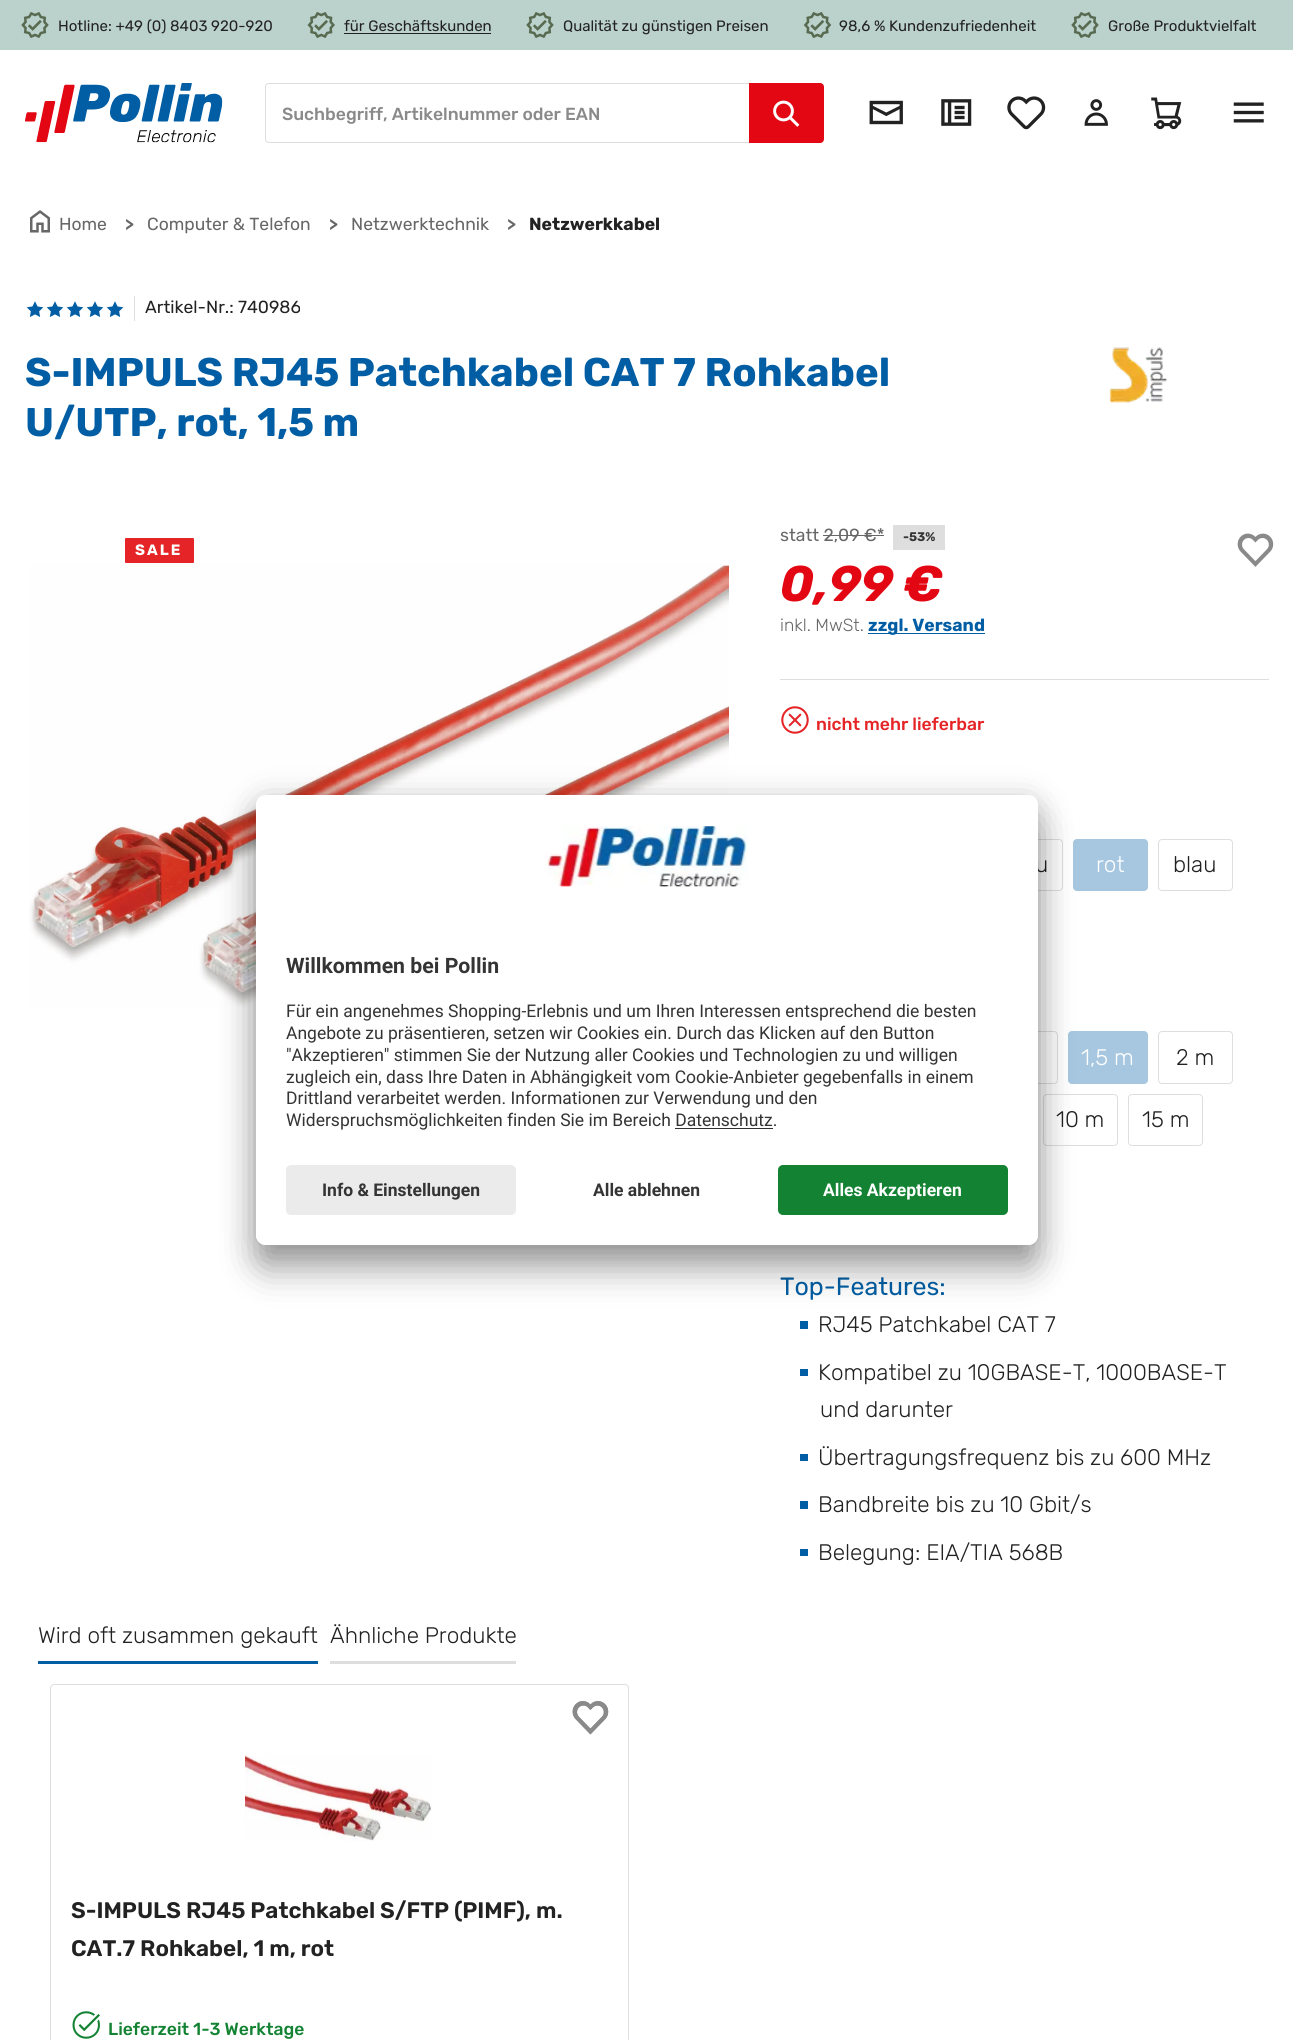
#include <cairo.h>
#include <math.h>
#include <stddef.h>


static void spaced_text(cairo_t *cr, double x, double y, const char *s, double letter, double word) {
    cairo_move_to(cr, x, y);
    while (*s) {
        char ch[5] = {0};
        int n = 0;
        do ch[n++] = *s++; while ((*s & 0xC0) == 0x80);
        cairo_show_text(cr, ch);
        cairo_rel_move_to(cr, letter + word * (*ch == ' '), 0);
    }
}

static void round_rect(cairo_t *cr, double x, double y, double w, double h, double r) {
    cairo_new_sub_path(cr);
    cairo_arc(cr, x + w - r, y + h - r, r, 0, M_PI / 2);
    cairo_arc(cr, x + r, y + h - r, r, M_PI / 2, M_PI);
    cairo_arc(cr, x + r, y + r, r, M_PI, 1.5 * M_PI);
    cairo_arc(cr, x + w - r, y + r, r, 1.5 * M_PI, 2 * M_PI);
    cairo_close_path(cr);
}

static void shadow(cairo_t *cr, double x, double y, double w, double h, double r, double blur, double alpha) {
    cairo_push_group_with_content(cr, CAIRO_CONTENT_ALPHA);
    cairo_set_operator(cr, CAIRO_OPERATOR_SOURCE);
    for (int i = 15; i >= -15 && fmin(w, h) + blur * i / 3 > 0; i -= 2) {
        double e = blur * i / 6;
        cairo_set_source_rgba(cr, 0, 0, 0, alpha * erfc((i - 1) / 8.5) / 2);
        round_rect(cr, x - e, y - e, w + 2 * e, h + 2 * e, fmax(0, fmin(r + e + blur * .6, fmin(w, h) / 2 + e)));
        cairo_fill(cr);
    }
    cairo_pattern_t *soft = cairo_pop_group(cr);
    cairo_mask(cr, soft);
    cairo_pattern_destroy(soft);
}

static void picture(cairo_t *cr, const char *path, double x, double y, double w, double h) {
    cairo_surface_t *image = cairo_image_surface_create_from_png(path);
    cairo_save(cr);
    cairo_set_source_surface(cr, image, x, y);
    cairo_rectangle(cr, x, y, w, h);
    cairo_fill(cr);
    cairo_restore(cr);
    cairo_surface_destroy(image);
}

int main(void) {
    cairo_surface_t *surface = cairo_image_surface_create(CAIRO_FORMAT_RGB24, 1293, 2040);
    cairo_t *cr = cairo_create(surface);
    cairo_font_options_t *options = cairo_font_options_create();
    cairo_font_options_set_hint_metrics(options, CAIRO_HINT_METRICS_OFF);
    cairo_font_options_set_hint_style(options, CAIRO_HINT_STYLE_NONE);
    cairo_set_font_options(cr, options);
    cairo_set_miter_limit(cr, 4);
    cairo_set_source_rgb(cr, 1, 1, 1);
    cairo_paint(cr);
    cairo_set_source_rgb(cr, 0.733, 0.82, 0.796);
    cairo_rectangle(cr, 0, 0, 1293, 50);
    cairo_fill(cr);
    picture(cr, "img1.png", 21, 12, 28, 26);
    cairo_select_font_face(cr, "Rubik", CAIRO_FONT_SLANT_NORMAL, CAIRO_FONT_WEIGHT_NORMAL);
    cairo_set_font_size(cr, 15);
    cairo_set_source_rgb(cr, 0.133, 0.133, 0.133);
    cairo_move_to(cr, 58, 31);
    cairo_show_text(cr, "Hotline: +49 (0) 8403 920-920");
    picture(cr, "img2.png", 307, 12, 28, 26);
    cairo_move_to(cr, 344, 31);
    cairo_show_text(cr, "für Geschäftskunden");
    cairo_rectangle(cr, 344, 33, 147, 1);
    cairo_fill(cr);
    picture(cr, "img1.png", 526, 12, 28, 26);
    cairo_move_to(cr, 563, 31);
    cairo_show_text(cr, "Qualität zu günstigen Preisen");
    picture(cr, "img3.png", 803, 12, 29, 26);
    cairo_move_to(cr, 839, 31);
    cairo_show_text(cr, "98,6 % Kundenzufriedenheit");
    picture(cr, "img1.png", 1071, 12, 28, 26);
    cairo_move_to(cr, 1108, 31);
    cairo_show_text(cr, "Große Produktvielfalt");
    picture(cr, "img4.png", 25, 83, 198, 60);
    cairo_new_path(cr);
    cairo_move_to(cr, 269, 83.5);
    cairo_line_to(cr, 749.5, 83.5);
    cairo_line_to(cr, 749.5, 142.5);
    cairo_line_to(cr, 269, 142.5);
    cairo_curve_to(cr, 267, 142.5, 265.5, 141, 265.5, 139);
    cairo_line_to(cr, 265.5, 87);
    cairo_curve_to(cr, 265.5, 85, 267, 83.5, 269, 83.5);
    cairo_close_path(cr);
    cairo_set_source_rgb(cr, 0.871, 0.871, 0.871);
    cairo_set_line_width(cr, 1);
    cairo_stroke(cr);
    cairo_select_font_face(cr, "Rubik Medium", CAIRO_FONT_SLANT_NORMAL, CAIRO_FONT_WEIGHT_NORMAL);
    cairo_set_font_size(cr, 17.5);
    cairo_set_source_rgb(cr, 0.541, 0.541, 0.541);
    cairo_move_to(cr, 282, 120);
    cairo_show_text(cr, "Suchbegriff, Artikelnummer oder EAN");
    cairo_set_source_rgb(cr, 0.89, 0.024, 0.075);
    cairo_new_path(cr);
    cairo_move_to(cr, 749.5, 83.5);
    cairo_line_to(cr, 820, 83.5);
    cairo_curve_to(cr, 822, 83.5, 823.5, 85, 823.5, 87);
    cairo_line_to(cr, 823.5, 139);
    cairo_curve_to(cr, 823.5, 141, 822, 142.5, 820, 142.5);
    cairo_line_to(cr, 749.5, 142.5);
    cairo_close_path(cr);
    cairo_fill_preserve(cr);
    cairo_stroke(cr);
    picture(cr, "img5.png", 773, 100, 27, 27);
    picture(cr, "img6.png", 869, 100, 34, 25);
    picture(cr, "img7.png", 941, 99, 31, 27);
    picture(cr, "img8.png", 1007, 96, 39, 34);
    picture(cr, "img9.png", 1084, 99, 24, 27);
    picture(cr, "img10.png", 1151, 97, 31, 33);
    picture(cr, "img11.png", 1233, 102, 31, 21);
    picture(cr, "img12.png", 30, 210, 20, 23);
    cairo_select_font_face(cr, "Rubik", CAIRO_FONT_SLANT_NORMAL, CAIRO_FONT_WEIGHT_NORMAL);
    cairo_set_source_rgb(cr, 0.404, 0.404, 0.404);
    cairo_move_to(cr, 59, 230);
    cairo_show_text(cr, "Home");
    cairo_select_font_face(cr, "Rubik SemiBold", CAIRO_FONT_SLANT_NORMAL, CAIRO_FONT_WEIGHT_NORMAL);
    spaced_text(cr, 125, 230, ">", -3, 0);
    cairo_select_font_face(cr, "Rubik", CAIRO_FONT_SLANT_NORMAL, CAIRO_FONT_WEIGHT_NORMAL);
    cairo_move_to(cr, 147, 230);
    cairo_show_text(cr, "Computer & Telefon");
    cairo_select_font_face(cr, "Rubik SemiBold", CAIRO_FONT_SLANT_NORMAL, CAIRO_FONT_WEIGHT_NORMAL);
    spaced_text(cr, 329, 230, ">", -3, 0);
    cairo_select_font_face(cr, "Rubik", CAIRO_FONT_SLANT_NORMAL, CAIRO_FONT_WEIGHT_NORMAL);
    cairo_move_to(cr, 351, 230);
    cairo_show_text(cr, "Netzwerktechnik");
    cairo_select_font_face(cr, "Rubik SemiBold", CAIRO_FONT_SLANT_NORMAL, CAIRO_FONT_WEIGHT_NORMAL);
    spaced_text(cr, 507, 230, ">", -3, 0);
    cairo_select_font_face(cr, "Rubik", CAIRO_FONT_SLANT_NORMAL, CAIRO_FONT_WEIGHT_BOLD);
    cairo_set_source_rgb(cr, 0.133, 0.133, 0.133);
    cairo_move_to(cr, 529, 230);
    cairo_show_text(cr, "Netzwerkkabel");
    picture(cr, "img13.png", 26, 301, 18, 16);
    picture(cr, "img13.png", 46, 301, 18, 16);
    picture(cr, "img13.png", 66, 301, 18, 16);
    picture(cr, "img13.png", 86, 301, 18, 16);
    picture(cr, "img13.png", 106, 301, 18, 16);
    cairo_set_source_rgb(cr, 0.871, 0.871, 0.871);
    cairo_rectangle(cr, 134, 296, 1, 25);
    cairo_fill(cr);
    cairo_select_font_face(cr, "Rubik", CAIRO_FONT_SLANT_NORMAL, CAIRO_FONT_WEIGHT_NORMAL);
    cairo_set_source_rgb(cr, 0.133, 0.133, 0.133);
    cairo_move_to(cr, 145, 313);
    cairo_show_text(cr, "Artikel-Nr.: 740986");
    cairo_select_font_face(cr, "Rubik", CAIRO_FONT_SLANT_NORMAL, CAIRO_FONT_WEIGHT_BOLD);
    cairo_set_font_size(cr, 40);
    cairo_set_source_rgb(cr, 0.008, 0.369, 0.643);
    cairo_move_to(cr, 25, 386);
    cairo_show_text(cr, "S-IMPULS RJ45 Patchkabel CAT 7 Rohkabel");
    cairo_move_to(cr, 25, 436);
    cairo_show_text(cr, "U/UTP, rot, 1,5 m");
    picture(cr, "img14.png", 1109, 347, 58, 56);
    cairo_set_source_rgb(cr, 0.898, 0.141, 0.153);
    round_rect(cr, 125, 538, 69, 25, 1);
    cairo_fill(cr);
    cairo_set_font_size(cr, 15);
    cairo_set_source_rgb(cr, 1, 1, 1);
    spaced_text(cr, 135, 555, "SALE", 2, 0);
    picture(cr, "img15.png", 29, 564, 700, 443);
    cairo_select_font_face(cr, "Rubik", CAIRO_FONT_SLANT_NORMAL, CAIRO_FONT_WEIGHT_NORMAL);
    cairo_set_font_size(cr, 17.5);
    cairo_set_source_rgb(cr, 0.404, 0.404, 0.404);
    cairo_move_to(cr, 780, 541);
    cairo_show_text(cr, "statt 2,09 €*");
    cairo_set_source_rgb(cr, 0.871, 0.871, 0.871);
    cairo_rectangle(cr, 893, 525, 52, 25);
    cairo_fill(cr);
    cairo_select_font_face(cr, "Rubik", CAIRO_FONT_SLANT_NORMAL, CAIRO_FONT_WEIGHT_BOLD);
    cairo_set_font_size(cr, 12.5);
    cairo_set_source_rgb(cr, 0.204, 0.204, 0.204);
    cairo_move_to(cr, 903, 541);
    cairo_show_text(cr, "-53%");
    cairo_set_source_rgb(cr, 0.404, 0.404, 0.404);
    cairo_rectangle(cr, 823, 535, 61, 1);
    cairo_fill(cr);
    cairo_select_font_face(cr, "Rubik", CAIRO_FONT_SLANT_ITALIC, CAIRO_FONT_WEIGHT_BOLD);
    cairo_set_font_size(cr, 50);
    cairo_set_source_rgb(cr, 0.89, 0.024, 0.075);
    cairo_move_to(cr, 780, 601);
    cairo_show_text(cr, "0,99 €");
    cairo_select_font_face(cr, "Rubik Light", CAIRO_FONT_SLANT_NORMAL, CAIRO_FONT_WEIGHT_NORMAL);
    cairo_set_font_size(cr, 17.5);
    cairo_set_source_rgb(cr, 0.404, 0.404, 0.404);
    cairo_move_to(cr, 780, 631);
    cairo_show_text(cr, "inkl. MwSt.");
    cairo_set_source_rgb(cr, 0.008, 0.369, 0.643);
    cairo_rectangle(cr, 868, 633, 117, 1);
    cairo_fill(cr);
    cairo_select_font_face(cr, "Rubik", CAIRO_FONT_SLANT_NORMAL, CAIRO_FONT_WEIGHT_BOLD);
    cairo_move_to(cr, 868, 631);
    cairo_show_text(cr, "zzgl. Versand");
    picture(cr, "img16.png", 1237, 533, 37, 34);
    cairo_set_source_rgb(cr, 0.871, 0.871, 0.871);
    cairo_rectangle(cr, 780, 679, 489, 1);
    cairo_fill(cr);
    picture(cr, "img17.png", 781, 706, 28, 28);
    cairo_select_font_face(cr, "Rubik Medium", CAIRO_FONT_SLANT_NORMAL, CAIRO_FONT_WEIGHT_NORMAL);
    cairo_set_source_rgb(cr, 0.898, 0.141, 0.153);
    cairo_move_to(cr, 816, 730);
    cairo_show_text(cr, "nicht mehr lieferbar");
    round_rect(cr, 988.5, 839.5, 74, 51, 3.5);
    cairo_set_source_rgb(cr, 0.871, 0.871, 0.871);
    cairo_stroke(cr);
    cairo_select_font_face(cr, "Rubik Light", CAIRO_FONT_SLANT_NORMAL, CAIRO_FONT_WEIGHT_NORMAL);
    cairo_set_font_size(cr, 22.5);
    cairo_set_source_rgb(cr, 0.133, 0.133, 0.133);
    cairo_move_to(cr, 1035, 872);
    cairo_show_text(cr, "u");
    cairo_set_source_rgb(cr, 0.651, 0.78, 0.875);
    round_rect(cr, 1073.5, 839.5, 74, 51, 3.5);
    cairo_fill_preserve(cr);
    cairo_stroke(cr);
    cairo_set_source_rgb(cr, 1, 1, 1);
    cairo_move_to(cr, 1096, 872);
    cairo_show_text(cr, "rot");
    round_rect(cr, 1158.5, 839.5, 74, 51, 3.5);
    cairo_set_source_rgb(cr, 0.871, 0.871, 0.871);
    cairo_stroke(cr);
    cairo_set_source_rgb(cr, 0.133, 0.133, 0.133);
    cairo_move_to(cr, 1173, 872);
    cairo_show_text(cr, "blau");
    round_rect(cr, 983.5, 1031.5, 74, 52, 3.5);
    cairo_set_source_rgb(cr, 0.871, 0.871, 0.871);
    cairo_stroke(cr);
    cairo_set_source_rgb(cr, 0.651, 0.78, 0.875);
    round_rect(cr, 1068.5, 1031.5, 79, 52, 3.5);
    cairo_fill_preserve(cr);
    cairo_stroke(cr);
    cairo_set_source_rgb(cr, 1, 1, 1);
    cairo_move_to(cr, 1081, 1065);
    cairo_show_text(cr, "1,5 m");
    round_rect(cr, 1158.5, 1031.5, 74, 52, 3.5);
    cairo_set_source_rgb(cr, 0.871, 0.871, 0.871);
    cairo_stroke(cr);
    cairo_set_source_rgb(cr, 0.133, 0.133, 0.133);
    cairo_move_to(cr, 1176, 1065);
    cairo_show_text(cr, "2 m");
    round_rect(cr, 1043.5, 1094.5, 74, 51, 3.5);
    cairo_set_source_rgb(cr, 0.871, 0.871, 0.871);
    cairo_stroke(cr);
    cairo_set_source_rgb(cr, 0.133, 0.133, 0.133);
    cairo_move_to(cr, 1056, 1127);
    cairo_show_text(cr, "10 m");
    round_rect(cr, 1128.5, 1094.5, 74, 51, 3.5);
    cairo_set_source_rgb(cr, 0.871, 0.871, 0.871);
    cairo_stroke(cr);
    cairo_set_source_rgb(cr, 0.133, 0.133, 0.133);
    cairo_move_to(cr, 1142, 1127);
    cairo_show_text(cr, "15 m");
    cairo_select_font_face(cr, "Rubik", CAIRO_FONT_SLANT_NORMAL, CAIRO_FONT_WEIGHT_NORMAL);
    cairo_set_font_size(cr, 25);
    cairo_set_source_rgb(cr, 0.008, 0.369, 0.643);
    cairo_move_to(cr, 780, 1295);
    cairo_show_text(cr, "Top-Features:");
    cairo_rectangle(cr, 800, 1321, 8, 8);
    cairo_fill(cr);
    cairo_select_font_face(cr, "Rubik Light", CAIRO_FONT_SLANT_NORMAL, CAIRO_FONT_WEIGHT_NORMAL);
    cairo_set_font_size(cr, 22.5);
    cairo_set_source_rgb(cr, 0.133, 0.133, 0.133);
    cairo_move_to(cr, 818, 1332);
    cairo_show_text(cr, "RJ45 Patchkabel CAT 7");
    cairo_set_source_rgb(cr, 0.008, 0.369, 0.643);
    cairo_rectangle(cr, 800, 1369, 8, 7);
    cairo_fill(cr);
    cairo_set_source_rgb(cr, 0.133, 0.133, 0.133);
    cairo_move_to(cr, 818, 1380);
    cairo_show_text(cr, "Kompatibel zu 10GBASE-T, 1000BASE-T");
    cairo_move_to(cr, 820, 1417);
    cairo_show_text(cr, "und darunter");
    cairo_set_source_rgb(cr, 0.008, 0.369, 0.643);
    cairo_rectangle(cr, 800, 1454, 8, 7);
    cairo_fill(cr);
    cairo_set_source_rgb(cr, 0.133, 0.133, 0.133);
    cairo_move_to(cr, 818, 1465);
    cairo_show_text(cr, "Übertragungsfrequenz bis zu 600 MHz");
    cairo_set_source_rgb(cr, 0.008, 0.369, 0.643);
    cairo_rectangle(cr, 800, 1501, 8, 8);
    cairo_fill(cr);
    cairo_set_source_rgb(cr, 0.133, 0.133, 0.133);
    cairo_move_to(cr, 818, 1512);
    cairo_show_text(cr, "Bandbreite bis zu 10 Gbit/s");
    cairo_set_source_rgb(cr, 0.008, 0.369, 0.643);
    cairo_rectangle(cr, 800, 1549, 8, 7);
    cairo_fill(cr);
    cairo_set_source_rgb(cr, 0.133, 0.133, 0.133);
    cairo_move_to(cr, 818, 1560);
    cairo_show_text(cr, "Belegung: EIA/TIA 568B");
    cairo_set_source_rgb(cr, 0.008, 0.369, 0.643);
    cairo_rectangle(cr, 38, 1661, 280, 3);
    cairo_fill(cr);
    cairo_set_source_rgb(cr, 0.133, 0.133, 0.133);
    cairo_move_to(cr, 38, 1643);
    cairo_show_text(cr, "Wird oft zusammen gekauft");
    cairo_set_source_rgb(cr, 0.871, 0.871, 0.871);
    cairo_rectangle(cr, 330, 1661, 186, 3);
    cairo_fill(cr);
    cairo_set_source_rgb(cr, 0.133, 0.133, 0.133);
    cairo_move_to(cr, 330, 1643);
    cairo_show_text(cr, "Ähnliche Produkte");
    round_rect(cr, 50.5, 1684.5, 578, 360, 3.5);
    cairo_set_source_rgb(cr, 0.871, 0.871, 0.871);
    cairo_stroke(cr);
    picture(cr, "img18.png", 572, 1701, 37, 34);
    picture(cr, "img19.png", 572, 1701, 37, 34);
    picture(cr, "img20.png", 245, 1754, 187, 87);
    cairo_select_font_face(cr, "Rubik SemiBold", CAIRO_FONT_SLANT_NORMAL, CAIRO_FONT_WEIGHT_NORMAL);
    cairo_set_source_rgb(cr, 0.133, 0.133, 0.133);
    cairo_move_to(cr, 71, 1918);
    cairo_show_text(cr, "S-IMPULS RJ45 Patchkabel S/FTP (PIMF), m.");
    cairo_move_to(cr, 71, 1956);
    cairo_show_text(cr, "CAT.7 Rohkabel, 1 m, rot");
    picture(cr, "img21.png", 72, 2011, 28, 28);
    cairo_select_font_face(cr, "Rubik Medium", CAIRO_FONT_SLANT_NORMAL, CAIRO_FONT_WEIGHT_NORMAL);
    cairo_set_font_size(cr, 17.5);
    cairo_set_source_rgb(cr, 0.078, 0.514, 0.2);
    cairo_move_to(cr, 108, 2035);
    cairo_show_text(cr, "Lieferzeit 1-3 Werktage");
    cairo_set_source_rgb(cr, 0, 0, 0);
    shadow(cr, 256, 820, 782, 450, 10, 17.5, 0.3);
    shadow(cr, 256, 801, 782, 450, 10, 16, 0.22);
    cairo_set_source_rgb(cr, 1, 1, 1);
    round_rect(cr, 256, 795, 782, 450, 10);
    cairo_fill(cr);
    cairo_save(cr);
    round_rect(cr, 256, 795, 782, 450, 10);
    cairo_clip(cr);
    cairo_new_path(cr);
    cairo_move_to(cr, 266, 795);
    cairo_line_to(cr, 1028, 795);
    cairo_curve_to(cr, 1033.5, 795, 1038, 799.5, 1038, 805);
    cairo_line_to(cr, 1038, 1155);
    cairo_line_to(cr, 256, 1155);
    cairo_line_to(cr, 256, 805);
    cairo_curve_to(cr, 256, 799.5, 260.5, 795, 266, 795);
    cairo_close_path(cr);
    cairo_clip(cr);
    cairo_rectangle(cr, 256, 796, 782, 359);
    cairo_fill(cr);
    cairo_restore(cr);
    picture(cr, "img22.png", 545, 826, 203, 61);
    cairo_select_font_face(cr, "Roboto", CAIRO_FONT_SLANT_NORMAL, CAIRO_FONT_WEIGHT_BOLD);
    cairo_set_font_size(cr, 21.25);
    cairo_set_source_rgb(cr, 0.204, 0.204, 0.204);
    cairo_move_to(cr, 286, 973);
    cairo_show_text(cr, "Willkommen bei Pollin");
    cairo_select_font_face(cr, "Roboto", CAIRO_FONT_SLANT_NORMAL, CAIRO_FONT_WEIGHT_NORMAL);
    cairo_set_font_size(cr, 17.5);
    cairo_move_to(cr, 286, 1017);
    cairo_show_text(cr, "Für ein angenehmes Shopping-Erlebnis und um Ihren Interessen entsprechend die besten");
    cairo_move_to(cr, 286, 1039);
    cairo_show_text(cr, "Angebote zu präsentieren, setzen wir Cookies ein. Durch das Klicken auf den Button");
    cairo_move_to(cr, 286, 1061);
    cairo_show_text(cr, "\"Akzeptieren\" stimmen Sie der Nutzung aller Cookies und Technologien zu und willigen");
    cairo_move_to(cr, 286, 1083);
    cairo_show_text(cr, "zugleich ein, dass Ihre Daten in Abhängigkeit vom Cookie-Anbieter gegebenfalls in einem");
    cairo_move_to(cr, 286, 1104);
    cairo_show_text(cr, "Drittland verarbeitet werden. Informationen zur Verwendung und den");
    cairo_move_to(cr, 286, 1126);
    cairo_show_text(cr, "Widerspruchsmöglichkeiten finden Sie im Bereich Datenschutz.");
    cairo_set_source_rgb(cr, 0.188, 0.188, 0.188);
    cairo_rectangle(cr, 675, 1128, 98, 1);
    cairo_fill(cr);
    cairo_set_source_rgb(cr, 1, 1, 1);
    cairo_new_path(cr);
    cairo_move_to(cr, 256, 1155);
    cairo_line_to(cr, 1038, 1155);
    cairo_line_to(cr, 1038, 1235);
    cairo_curve_to(cr, 1038, 1240.5, 1033.5, 1245, 1028, 1245);
    cairo_line_to(cr, 266, 1245);
    cairo_curve_to(cr, 260.5, 1245, 256, 1240.5, 256, 1235);
    cairo_close_path(cr);
    cairo_fill(cr);
    cairo_set_source_rgb(cr, 0.918, 0.918, 0.918);
    round_rect(cr, 286, 1165, 230, 50, 5);
    cairo_fill(cr);
    cairo_select_font_face(cr, "Roboto", CAIRO_FONT_SLANT_NORMAL, CAIRO_FONT_WEIGHT_BOLD);
    cairo_set_source_rgb(cr, 0.204, 0.204, 0.204);
    cairo_move_to(cr, 322, 1196);
    cairo_show_text(cr, "Info & Einstellungen");
    cairo_move_to(cr, 593, 1196);
    cairo_show_text(cr, "Alle ablehnen");
    cairo_set_source_rgb(cr, 0.078, 0.514, 0.2);
    round_rect(cr, 778, 1165, 230, 50, 5);
    cairo_fill(cr);
    cairo_set_source_rgb(cr, 1, 1, 1);
    cairo_move_to(cr, 823, 1196);
    cairo_show_text(cr, "Alles Akzeptieren");
    cairo_surface_write_to_png(surface, "page.png");
    cairo_font_options_destroy(options);
    cairo_destroy(cr);
    cairo_surface_destroy(surface);
    return 0;
}
